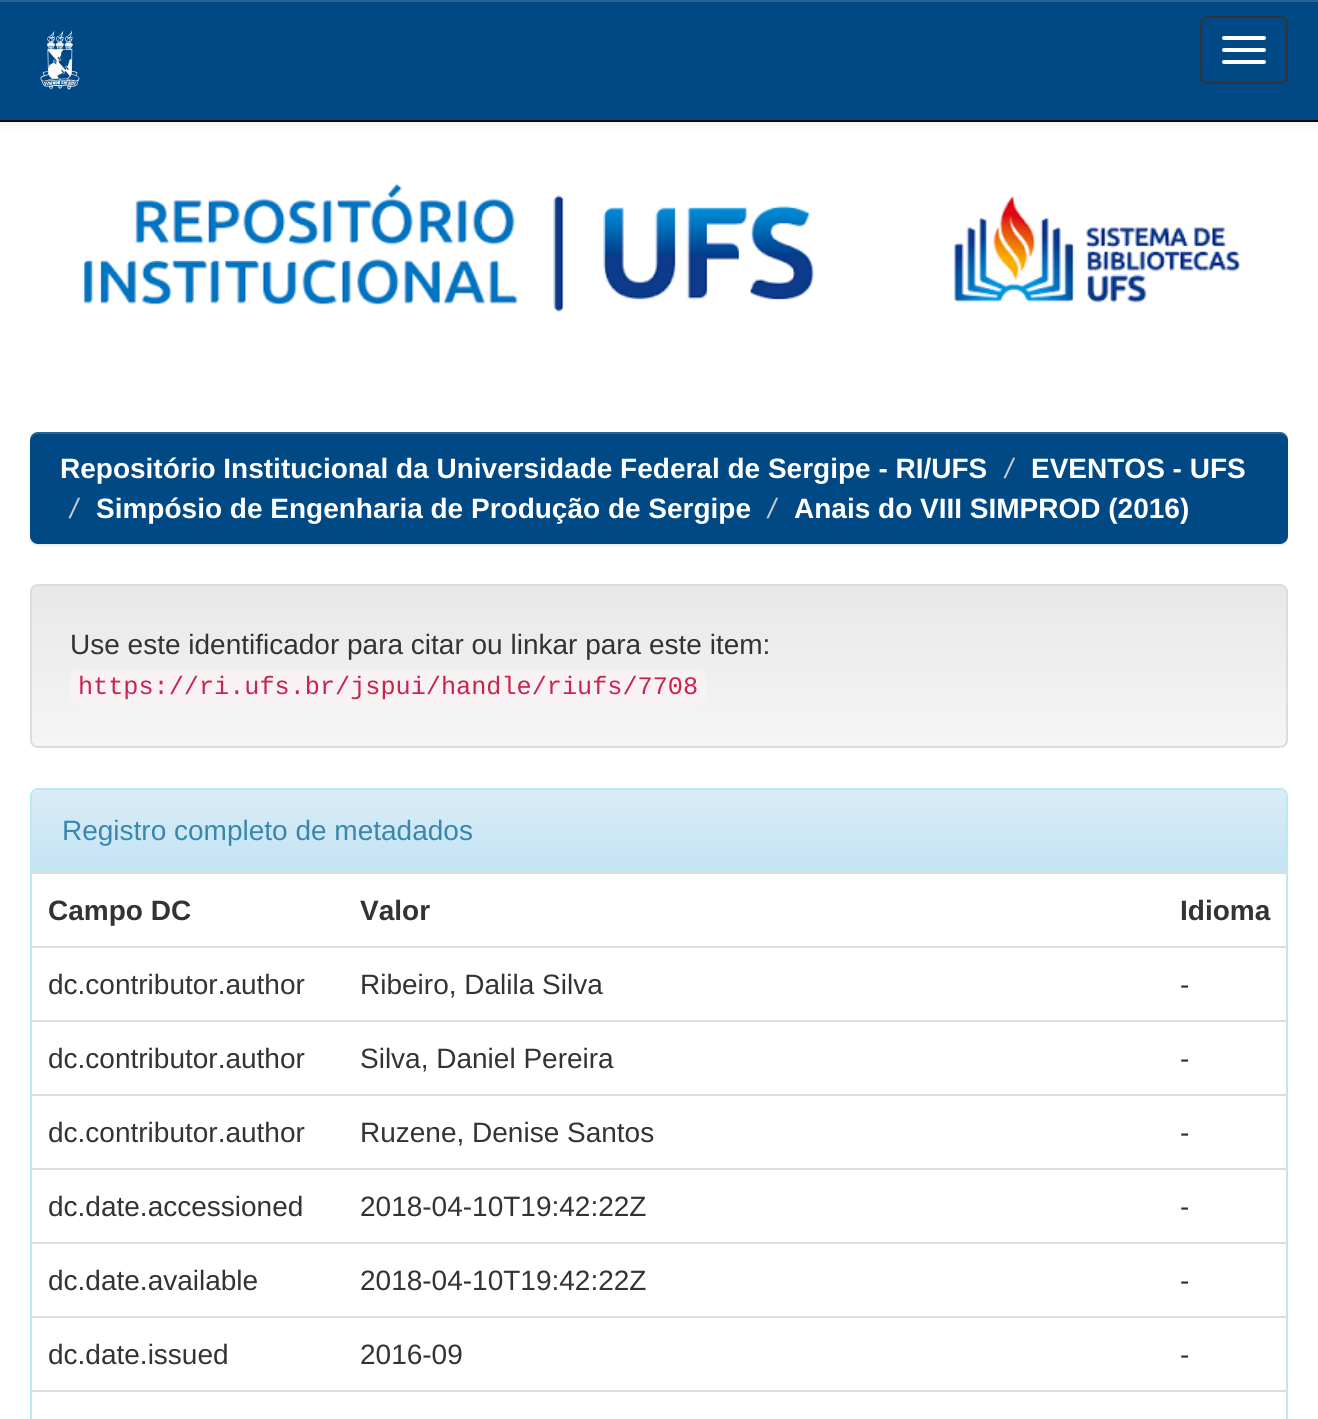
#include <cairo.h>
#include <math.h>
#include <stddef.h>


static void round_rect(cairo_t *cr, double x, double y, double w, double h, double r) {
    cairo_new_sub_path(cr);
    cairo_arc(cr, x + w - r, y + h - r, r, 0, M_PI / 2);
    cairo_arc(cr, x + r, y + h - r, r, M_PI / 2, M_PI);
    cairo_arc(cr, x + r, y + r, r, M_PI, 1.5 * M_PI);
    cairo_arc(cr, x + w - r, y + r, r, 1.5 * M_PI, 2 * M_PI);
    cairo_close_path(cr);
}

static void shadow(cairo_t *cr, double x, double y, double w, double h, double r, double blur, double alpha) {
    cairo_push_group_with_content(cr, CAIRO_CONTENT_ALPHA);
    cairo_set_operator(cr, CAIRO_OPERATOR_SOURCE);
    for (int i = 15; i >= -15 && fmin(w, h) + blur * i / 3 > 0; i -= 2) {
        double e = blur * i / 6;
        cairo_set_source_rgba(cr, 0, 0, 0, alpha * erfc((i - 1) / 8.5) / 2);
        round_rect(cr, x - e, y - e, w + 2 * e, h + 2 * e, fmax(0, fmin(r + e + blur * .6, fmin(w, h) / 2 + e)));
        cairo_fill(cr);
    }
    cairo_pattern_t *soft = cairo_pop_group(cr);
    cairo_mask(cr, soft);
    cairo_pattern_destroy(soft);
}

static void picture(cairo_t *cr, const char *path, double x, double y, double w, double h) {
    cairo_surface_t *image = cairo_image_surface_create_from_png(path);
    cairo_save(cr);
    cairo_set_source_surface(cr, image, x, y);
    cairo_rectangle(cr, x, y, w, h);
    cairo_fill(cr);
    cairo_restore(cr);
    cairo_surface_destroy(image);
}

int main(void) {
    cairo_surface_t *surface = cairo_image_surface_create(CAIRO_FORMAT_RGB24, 1318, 1419);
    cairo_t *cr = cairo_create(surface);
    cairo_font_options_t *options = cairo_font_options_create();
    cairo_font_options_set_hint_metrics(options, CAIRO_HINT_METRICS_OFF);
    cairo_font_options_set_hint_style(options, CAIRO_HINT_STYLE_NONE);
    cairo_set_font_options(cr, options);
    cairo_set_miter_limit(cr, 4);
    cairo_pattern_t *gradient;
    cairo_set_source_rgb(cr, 1, 1, 1);
    cairo_paint(cr);
    cairo_set_source_rgb(cr, 0, 0, 0);
    shadow(cr, 0, 2, 1318, 122, 0, 5, 0.07);
    cairo_set_source_rgb(cr, 0, 0.286, 0.518);
    cairo_rectangle(cr, 0, 2, 1318, 118);
    cairo_fill(cr);
    cairo_set_source_rgb(cr, 0.149, 0.392, 0.588);
    cairo_rectangle(cr, 0, 0, 1318, 2);
    cairo_fill(cr);
    cairo_set_source_rgb(cr, 0.031, 0.031, 0.031);
    cairo_rectangle(cr, 0, 120, 1318, 2);
    cairo_fill(cr);
    picture(cr, "img1.png", 40, 30, 40, 60);
    round_rect(cr, 1201, 17, 86, 66, 7);
    cairo_set_source_rgb(cr, 0.2, 0.2, 0.2);
    cairo_stroke(cr);
    cairo_set_source_rgb(cr, 1, 1, 1);
    round_rect(cr, 1222, 36, 44, 4, 2);
    cairo_fill(cr);
    round_rect(cr, 1222, 48, 44, 4, 2);
    cairo_fill(cr);
    round_rect(cr, 1222, 60, 44, 4, 2);
    cairo_fill(cr);
    picture(cr, "img2.png", 84, 183, 1157, 129);
    cairo_set_source_rgb(cr, 0, 0, 0);
    shadow(cr, 30, 434, 1258, 112, 8, 1, 0.07);
    cairo_set_source_rgb(cr, 0, 0.286, 0.518);
    round_rect(cr, 30, 432, 1258, 112, 8);
    cairo_fill(cr);
    cairo_set_source_rgba(cr, 1, 1, 1, 0.15);
    cairo_new_path(cr);
    cairo_move_to(cr, 38, 434);
    cairo_line_to(cr, 1280, 434);
    cairo_curve_to(cr, 1284, 434, 1288, 438, 1288, 442);
    cairo_curve_to(cr, 1288, 437, 1286, 432, 1280, 432);
    cairo_line_to(cr, 38, 432);
    cairo_curve_to(cr, 32, 432, 30, 437, 30, 442);
    cairo_curve_to(cr, 30, 438, 34, 434, 38, 434);
    cairo_close_path(cr);
    cairo_fill(cr);
    cairo_select_font_face(cr, "Liberation Sans", CAIRO_FONT_SLANT_NORMAL, CAIRO_FONT_WEIGHT_BOLD);
    cairo_set_font_size(cr, 28);
    cairo_set_source_rgb(cr, 1, 1, 1);
    cairo_move_to(cr, 60, 478);
    cairo_show_text(cr, "Repositório Institucional da Universidade Federal de Sergipe - RI/UFS");
    cairo_select_font_face(cr, "Liberation Sans", CAIRO_FONT_SLANT_ITALIC, CAIRO_FONT_WEIGHT_NORMAL);
    cairo_set_source_rgb(cr, 0.8, 0.8, 0.8);
    cairo_move_to(cr, 1005, 478);
    cairo_show_text(cr, "/");
    cairo_select_font_face(cr, "Liberation Sans", CAIRO_FONT_SLANT_NORMAL, CAIRO_FONT_WEIGHT_BOLD);
    cairo_set_source_rgb(cr, 1, 1, 1);
    cairo_move_to(cr, 1031, 478);
    cairo_show_text(cr, "EVENTOS - UFS");
    cairo_select_font_face(cr, "Liberation Sans", CAIRO_FONT_SLANT_ITALIC, CAIRO_FONT_WEIGHT_NORMAL);
    cairo_set_source_rgb(cr, 0.8, 0.8, 0.8);
    cairo_move_to(cr, 70, 518);
    cairo_show_text(cr, "/");
    cairo_select_font_face(cr, "Liberation Sans", CAIRO_FONT_SLANT_NORMAL, CAIRO_FONT_WEIGHT_BOLD);
    cairo_set_source_rgb(cr, 1, 1, 1);
    cairo_move_to(cr, 96, 518);
    cairo_show_text(cr, "Simpósio de Engenharia de Produção de Sergipe");
    cairo_select_font_face(cr, "Liberation Sans", CAIRO_FONT_SLANT_ITALIC, CAIRO_FONT_WEIGHT_NORMAL);
    cairo_set_source_rgb(cr, 0.8, 0.8, 0.8);
    cairo_move_to(cr, 768, 518);
    cairo_show_text(cr, "/");
    cairo_select_font_face(cr, "Liberation Sans", CAIRO_FONT_SLANT_NORMAL, CAIRO_FONT_WEIGHT_BOLD);
    cairo_set_source_rgb(cr, 1, 1, 1);
    cairo_move_to(cr, 794, 518);
    cairo_show_text(cr, "Anais do VIII SIMPROD (2016)");
    cairo_save(cr);
    round_rect(cr, 30, 584, 1258, 164, 8);
    cairo_clip(cr);
    gradient = cairo_pattern_create_linear(659, 586, 659, 746);
    cairo_pattern_add_color_stop_rgba(gradient, 0, 0.91, 0.91, 0.91, 1);
    cairo_pattern_add_color_stop_rgba(gradient, 1, 0.961, 0.961, 0.961, 1);
    cairo_set_source(cr, gradient);
    cairo_pattern_destroy(gradient);
    cairo_rectangle(cr, 30, 586, 1258, 160);
    cairo_fill(cr);
    cairo_restore(cr);
    round_rect(cr, 31, 585, 1256, 162, 7);
    cairo_set_source_rgb(cr, 0.863, 0.863, 0.863);
    cairo_stroke(cr);
    cairo_select_font_face(cr, "Liberation Sans", CAIRO_FONT_SLANT_NORMAL, CAIRO_FONT_WEIGHT_NORMAL);
    cairo_set_source_rgb(cr, 0.2, 0.2, 0.2);
    cairo_move_to(cr, 70, 654);
    cairo_show_text(cr, "Use este identificador para citar ou linkar para este item:");
    cairo_set_source_rgb(cr, 0.976, 0.949, 0.957);
    round_rect(cr, 70, 670, 636, 36, 8);
    cairo_fill(cr);
    cairo_select_font_face(cr, "Liberation Mono", CAIRO_FONT_SLANT_NORMAL, CAIRO_FONT_WEIGHT_NORMAL);
    cairo_set_font_size(cr, 25.2);
    cairo_set_source_rgb(cr, 0.78, 0.145, 0.306);
    cairo_move_to(cr, 78, 694);
    cairo_show_text(cr, "https://ri.ufs.br/jspui/handle/riufs/7708");
    round_rect(cr, 31, 789, 1256, 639, 7);
    cairo_set_source_rgb(cr, 0.737, 0.91, 0.945);
    cairo_stroke(cr);
    gradient = cairo_pattern_create_linear(659, 790, 659, 870);
    cairo_pattern_add_color_stop_rgba(gradient, 0, 0.851, 0.929, 0.969, 1);
    cairo_pattern_add_color_stop_rgba(gradient, 1, 0.769, 0.89, 0.953, 1);
    cairo_set_source(cr, gradient);
    cairo_pattern_destroy(gradient);
    cairo_new_path(cr);
    cairo_move_to(cr, 38, 790);
    cairo_line_to(cr, 1280, 790);
    cairo_curve_to(cr, 1283.5, 790, 1286, 792.5, 1286, 796);
    cairo_line_to(cr, 1286, 870);
    cairo_line_to(cr, 32, 870);
    cairo_line_to(cr, 32, 796);
    cairo_curve_to(cr, 32, 792.5, 34.5, 790, 38, 790);
    cairo_close_path(cr);
    cairo_fill(cr);
    cairo_set_source_rgb(cr, 0.737, 0.91, 0.945);
    cairo_rectangle(cr, 32, 870, 1254, 2);
    cairo_fill(cr);
    cairo_select_font_face(cr, "Liberation Sans", CAIRO_FONT_SLANT_NORMAL, CAIRO_FONT_WEIGHT_NORMAL);
    cairo_set_font_size(cr, 28);
    cairo_set_source_rgb(cr, 0.227, 0.529, 0.678);
    cairo_move_to(cr, 62, 840);
    cairo_show_text(cr, "Registro completo de metadados");
    cairo_select_font_face(cr, "Liberation Sans", CAIRO_FONT_SLANT_NORMAL, CAIRO_FONT_WEIGHT_BOLD);
    cairo_set_source_rgb(cr, 0.2, 0.2, 0.2);
    cairo_move_to(cr, 48, 920);
    cairo_show_text(cr, "Campo DC");
    cairo_move_to(cr, 360, 920);
    cairo_show_text(cr, "Valor");
    cairo_set_source_rgb(cr, 0.867, 0.867, 0.867);
    cairo_rectangle(cr, 32, 872, 1256, 2);
    cairo_fill(cr);
    cairo_set_source_rgb(cr, 0.2, 0.2, 0.2);
    cairo_move_to(cr, 1180, 920);
    cairo_show_text(cr, "Idioma");
    cairo_select_font_face(cr, "Liberation Sans", CAIRO_FONT_SLANT_NORMAL, CAIRO_FONT_WEIGHT_NORMAL);
    cairo_move_to(cr, 48, 994);
    cairo_show_text(cr, "dc.contributor.author");
    cairo_move_to(cr, 360, 994);
    cairo_show_text(cr, "Ribeiro, Dalila Silva");
    cairo_set_source_rgb(cr, 0.867, 0.867, 0.867);
    cairo_rectangle(cr, 32, 946, 1256, 2);
    cairo_fill(cr);
    cairo_set_source_rgb(cr, 0.2, 0.2, 0.2);
    cairo_move_to(cr, 1180, 994);
    cairo_show_text(cr, "-");
    cairo_move_to(cr, 48, 1068);
    cairo_show_text(cr, "dc.contributor.author");
    cairo_move_to(cr, 360, 1068);
    cairo_show_text(cr, "Silva, Daniel Pereira");
    cairo_set_source_rgb(cr, 0.867, 0.867, 0.867);
    cairo_rectangle(cr, 32, 1020, 1256, 2);
    cairo_fill(cr);
    cairo_set_source_rgb(cr, 0.2, 0.2, 0.2);
    cairo_move_to(cr, 1180, 1068);
    cairo_show_text(cr, "-");
    cairo_move_to(cr, 48, 1142);
    cairo_show_text(cr, "dc.contributor.author");
    cairo_move_to(cr, 360, 1142);
    cairo_show_text(cr, "Ruzene, Denise Santos");
    cairo_set_source_rgb(cr, 0.867, 0.867, 0.867);
    cairo_rectangle(cr, 32, 1094, 1256, 2);
    cairo_fill(cr);
    cairo_set_source_rgb(cr, 0.2, 0.2, 0.2);
    cairo_move_to(cr, 1180, 1142);
    cairo_show_text(cr, "-");
    cairo_move_to(cr, 48, 1216);
    cairo_show_text(cr, "dc.date.accessioned");
    cairo_move_to(cr, 360, 1216);
    cairo_show_text(cr, "2018-04-10T19:42:22Z");
    cairo_set_source_rgb(cr, 0.867, 0.867, 0.867);
    cairo_rectangle(cr, 32, 1168, 1256, 2);
    cairo_fill(cr);
    cairo_set_source_rgb(cr, 0.2, 0.2, 0.2);
    cairo_move_to(cr, 1180, 1216);
    cairo_show_text(cr, "-");
    cairo_move_to(cr, 48, 1290);
    cairo_show_text(cr, "dc.date.available");
    cairo_move_to(cr, 360, 1290);
    cairo_show_text(cr, "2018-04-10T19:42:22Z");
    cairo_set_source_rgb(cr, 0.867, 0.867, 0.867);
    cairo_rectangle(cr, 32, 1242, 1256, 2);
    cairo_fill(cr);
    cairo_set_source_rgb(cr, 0.2, 0.2, 0.2);
    cairo_move_to(cr, 1180, 1290);
    cairo_show_text(cr, "-");
    cairo_move_to(cr, 48, 1364);
    cairo_show_text(cr, "dc.date.issued");
    cairo_move_to(cr, 360, 1364);
    cairo_show_text(cr, "2016-09");
    cairo_set_source_rgb(cr, 0.867, 0.867, 0.867);
    cairo_rectangle(cr, 32, 1316, 1256, 2);
    cairo_fill(cr);
    cairo_set_source_rgb(cr, 0.2, 0.2, 0.2);
    cairo_move_to(cr, 1180, 1364);
    cairo_show_text(cr, "-");
    cairo_set_source_rgb(cr, 0.867, 0.867, 0.867);
    cairo_rectangle(cr, 32, 1390, 1256, 2);
    cairo_fill(cr);
    cairo_surface_write_to_png(surface, "page.png");
    cairo_font_options_destroy(options);
    cairo_destroy(cr);
    cairo_surface_destroy(surface);
    return 0;
}
